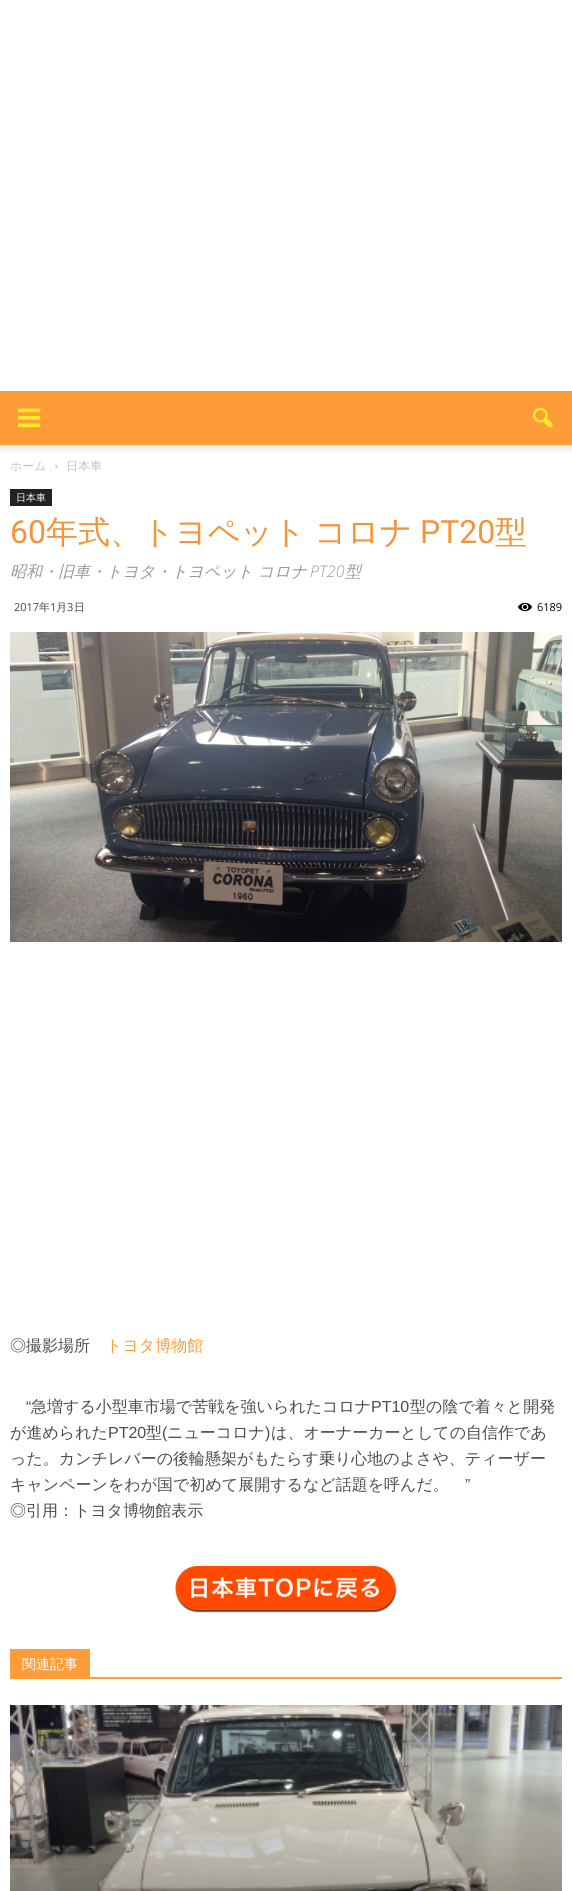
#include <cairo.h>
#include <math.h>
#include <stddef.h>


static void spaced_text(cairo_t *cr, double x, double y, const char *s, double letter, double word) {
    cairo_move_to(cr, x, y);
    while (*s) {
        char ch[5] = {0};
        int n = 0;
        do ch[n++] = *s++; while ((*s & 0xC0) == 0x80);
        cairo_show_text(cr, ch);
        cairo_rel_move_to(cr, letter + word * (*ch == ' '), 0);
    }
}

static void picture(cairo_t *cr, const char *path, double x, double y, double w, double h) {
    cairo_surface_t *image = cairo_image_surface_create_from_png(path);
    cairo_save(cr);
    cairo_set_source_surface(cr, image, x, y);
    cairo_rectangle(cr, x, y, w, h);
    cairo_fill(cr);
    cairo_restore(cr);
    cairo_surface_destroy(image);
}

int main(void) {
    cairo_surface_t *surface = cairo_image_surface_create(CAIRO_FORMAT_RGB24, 572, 1891);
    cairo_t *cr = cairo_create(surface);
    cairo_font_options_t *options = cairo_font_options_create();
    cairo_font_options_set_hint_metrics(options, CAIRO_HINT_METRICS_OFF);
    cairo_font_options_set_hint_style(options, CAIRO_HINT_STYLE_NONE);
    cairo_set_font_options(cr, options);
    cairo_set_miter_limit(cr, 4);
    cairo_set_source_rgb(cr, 1, 1, 1);
    cairo_paint(cr);
    cairo_set_source_rgb(cr, 1, 0.612, 0.227);
    cairo_rectangle(cr, 0, 391, 572, 54);
    cairo_fill(cr);
    picture(cr, "img1.png", 18, 408, 23, 20);
    picture(cr, "img2.png", 533, 407, 20, 21);
    picture(cr, "img3.png", 0, 445, 572, 9);
    cairo_select_font_face(cr, "WenQuanYi Zen Hei Medium", CAIRO_FONT_SLANT_NORMAL, CAIRO_FONT_WEIGHT_NORMAL);
    cairo_set_font_size(cr, 12);
    cairo_set_source_rgb(cr, 0.765, 0.765, 0.765);
    cairo_move_to(cr, 10, 470);
    cairo_show_text(cr, "ホーム");
    picture(cr, "img4.png", 55, 464, 3, 5);
    cairo_move_to(cr, 66, 470);
    cairo_show_text(cr, "日本車");
    cairo_set_source_rgb(cr, 0.133, 0.133, 0.133);
    cairo_rectangle(cr, 10, 489, 42, 17);
    cairo_fill(cr);
    cairo_set_font_size(cr, 10);
    cairo_set_source_rgb(cr, 1, 1, 1);
    cairo_move_to(cr, 16, 501);
    cairo_show_text(cr, "日本車");
    cairo_select_font_face(cr, "Roboto", CAIRO_FONT_SLANT_NORMAL, CAIRO_FONT_WEIGHT_NORMAL);
    cairo_set_font_size(cr, 32);
    cairo_set_source_rgb(cr, 0.949, 0.58, 0.216);
    cairo_move_to(cr, 10, 543);
    cairo_show_text(cr, "60");
    cairo_select_font_face(cr, "WenQuanYi Zen Hei Medium", CAIRO_FONT_SLANT_NORMAL, CAIRO_FONT_WEIGHT_NORMAL);
    spaced_text(cr, 46, 543, "年式、トヨペット コロナ", 0, -1);
    cairo_select_font_face(cr, "Roboto", CAIRO_FONT_SLANT_NORMAL, CAIRO_FONT_WEIGHT_NORMAL);
    cairo_move_to(cr, 420, 543);
    cairo_show_text(cr, "PT20");
    cairo_select_font_face(cr, "WenQuanYi Zen Hei Medium", CAIRO_FONT_SLANT_NORMAL, CAIRO_FONT_WEIGHT_NORMAL);
    cairo_move_to(cr, 495, 543);
    cairo_show_text(cr, "型");
    cairo_select_font_face(cr, "WenQuanYi Zen Hei Medium", CAIRO_FONT_SLANT_ITALIC, CAIRO_FONT_WEIGHT_NORMAL);
    cairo_set_font_size(cr, 16);
    cairo_set_source_rgb(cr, 0.6, 0.6, 0.6);
    cairo_move_to(cr, 10, 577);
    cairo_show_text(cr, "昭和・旧車・トヨタ・トヨペット コロナ");
    cairo_select_font_face(cr, "Open Sans Light", CAIRO_FONT_SLANT_ITALIC, CAIRO_FONT_WEIGHT_NORMAL);
    cairo_move_to(cr, 310, 577);
    cairo_show_text(cr, "PT20");
    cairo_select_font_face(cr, "WenQuanYi Zen Hei Medium", CAIRO_FONT_SLANT_ITALIC, CAIRO_FONT_WEIGHT_NORMAL);
    cairo_move_to(cr, 345, 577);
    cairo_show_text(cr, "型");
    cairo_select_font_face(cr, "Open Sans", CAIRO_FONT_SLANT_NORMAL, CAIRO_FONT_WEIGHT_NORMAL);
    cairo_set_font_size(cr, 11);
    cairo_set_source_rgb(cr, 0.267, 0.267, 0.267);
    cairo_move_to(cr, 14, 611);
    cairo_show_text(cr, "2017");
    cairo_select_font_face(cr, "WenQuanYi Zen Hei Medium", CAIRO_FONT_SLANT_NORMAL, CAIRO_FONT_WEIGHT_NORMAL);
    cairo_move_to(cr, 39, 611);
    cairo_show_text(cr, "年");
    cairo_select_font_face(cr, "Open Sans", CAIRO_FONT_SLANT_NORMAL, CAIRO_FONT_WEIGHT_NORMAL);
    cairo_move_to(cr, 50, 611);
    cairo_show_text(cr, "1");
    cairo_select_font_face(cr, "WenQuanYi Zen Hei Medium", CAIRO_FONT_SLANT_NORMAL, CAIRO_FONT_WEIGHT_NORMAL);
    cairo_move_to(cr, 56, 611);
    cairo_show_text(cr, "月");
    cairo_select_font_face(cr, "Open Sans", CAIRO_FONT_SLANT_NORMAL, CAIRO_FONT_WEIGHT_NORMAL);
    cairo_move_to(cr, 67, 611);
    cairo_show_text(cr, "3");
    cairo_select_font_face(cr, "WenQuanYi Zen Hei Medium", CAIRO_FONT_SLANT_NORMAL, CAIRO_FONT_WEIGHT_NORMAL);
    cairo_move_to(cr, 74, 611);
    cairo_show_text(cr, "日");
    picture(cr, "img5.png", 518, 602, 14, 10);
    cairo_select_font_face(cr, "Open Sans", CAIRO_FONT_SLANT_NORMAL, CAIRO_FONT_WEIGHT_NORMAL);
    cairo_set_source_rgb(cr, 0, 0, 0);
    cairo_move_to(cr, 537, 611);
    cairo_show_text(cr, "6189");
    picture(cr, "img6.png", 10, 632, 552, 310);
    cairo_select_font_face(cr, "WenQuanYi Zen Hei Medium", CAIRO_FONT_SLANT_NORMAL, CAIRO_FONT_WEIGHT_NORMAL);
    cairo_set_font_size(cr, 16);
    cairo_set_source_rgb(cr, 0.298, 0.298, 0.298);
    cairo_move_to(cr, 10, 1351);
    cairo_show_text(cr, "◎撮影場所");
    cairo_set_source_rgb(cr, 1, 0.612, 0.227);
    cairo_move_to(cr, 106, 1351);
    cairo_show_text(cr, "トヨタ博物館");
    cairo_select_font_face(cr, "Liberation Sans", CAIRO_FONT_SLANT_NORMAL, CAIRO_FONT_WEIGHT_NORMAL);
    cairo_set_source_rgb(cr, 0.298, 0.298, 0.298);
    cairo_move_to(cr, 26, 1412);
    cairo_show_text(cr, "“");
    cairo_select_font_face(cr, "WenQuanYi Zen Hei Medium", CAIRO_FONT_SLANT_NORMAL, CAIRO_FONT_WEIGHT_NORMAL);
    cairo_move_to(cr, 31, 1412);
    cairo_show_text(cr, "急増する小型車市場で苦戦を強いられたコロナ");
    cairo_select_font_face(cr, "Liberation Sans", CAIRO_FONT_SLANT_NORMAL, CAIRO_FONT_WEIGHT_NORMAL);
    cairo_move_to(cr, 371, 1412);
    cairo_show_text(cr, "PT10");
    cairo_select_font_face(cr, "WenQuanYi Zen Hei Medium", CAIRO_FONT_SLANT_NORMAL, CAIRO_FONT_WEIGHT_NORMAL);
    cairo_move_to(cr, 410, 1412);
    cairo_show_text(cr, "型の陰で着々と開発");
    cairo_move_to(cr, 10, 1438);
    cairo_show_text(cr, "が進められた");
    cairo_select_font_face(cr, "Liberation Sans", CAIRO_FONT_SLANT_NORMAL, CAIRO_FONT_WEIGHT_NORMAL);
    cairo_move_to(cr, 108, 1438);
    cairo_show_text(cr, "PT20");
    cairo_select_font_face(cr, "WenQuanYi Zen Hei Medium", CAIRO_FONT_SLANT_NORMAL, CAIRO_FONT_WEIGHT_NORMAL);
    cairo_move_to(cr, 146, 1438);
    cairo_show_text(cr, "型");
    cairo_select_font_face(cr, "Liberation Sans", CAIRO_FONT_SLANT_NORMAL, CAIRO_FONT_WEIGHT_NORMAL);
    cairo_move_to(cr, 162, 1438);
    cairo_show_text(cr, "(");
    cairo_select_font_face(cr, "WenQuanYi Zen Hei Medium", CAIRO_FONT_SLANT_NORMAL, CAIRO_FONT_WEIGHT_NORMAL);
    cairo_move_to(cr, 167, 1438);
    cairo_show_text(cr, "ニューコロナ");
    cairo_select_font_face(cr, "Liberation Sans", CAIRO_FONT_SLANT_NORMAL, CAIRO_FONT_WEIGHT_NORMAL);
    cairo_move_to(cr, 265, 1438);
    cairo_show_text(cr, ")");
    cairo_select_font_face(cr, "WenQuanYi Zen Hei Medium", CAIRO_FONT_SLANT_NORMAL, CAIRO_FONT_WEIGHT_NORMAL);
    cairo_move_to(cr, 271, 1438);
    cairo_show_text(cr, "は、オーナーカーとしての自信作であ");
    cairo_move_to(cr, 10, 1464);
    cairo_show_text(cr, "った。カンチレバーの後輪懸架がもたらす乗り心地のよさや、ティーザー");
    cairo_move_to(cr, 10, 1490);
    cairo_show_text(cr, "キャンペーンをわが国で初めて展開するなど話題を呼んだ。");
    cairo_select_font_face(cr, "Liberation Sans", CAIRO_FONT_SLANT_NORMAL, CAIRO_FONT_WEIGHT_NORMAL);
    cairo_move_to(cr, 465, 1490);
    cairo_show_text(cr, "”");
    cairo_select_font_face(cr, "WenQuanYi Zen Hei Medium", CAIRO_FONT_SLANT_NORMAL, CAIRO_FONT_WEIGHT_NORMAL);
    cairo_move_to(cr, 10, 1516);
    cairo_show_text(cr, "◎引用：トヨタ博物館表示");
    picture(cr, "img7.png", 175, 1566, 222, 47);
    cairo_set_source_rgb(cr, 1, 0.612, 0.227);
    cairo_rectangle(cr, 10, 1677, 552, 2);
    cairo_fill(cr);
    cairo_rectangle(cr, 10, 1649, 80, 28);
    cairo_fill(cr);
    cairo_set_font_size(cr, 14);
    cairo_set_source_rgb(cr, 1, 1, 1);
    cairo_move_to(cr, 22, 1669);
    cairo_show_text(cr, "関連記事");
    picture(cr, "img8.png", 10, 1705, 552, 186);
    cairo_surface_write_to_png(surface, "page.png");
    cairo_font_options_destroy(options);
    cairo_destroy(cr);
    cairo_surface_destroy(surface);
    return 0;
}
